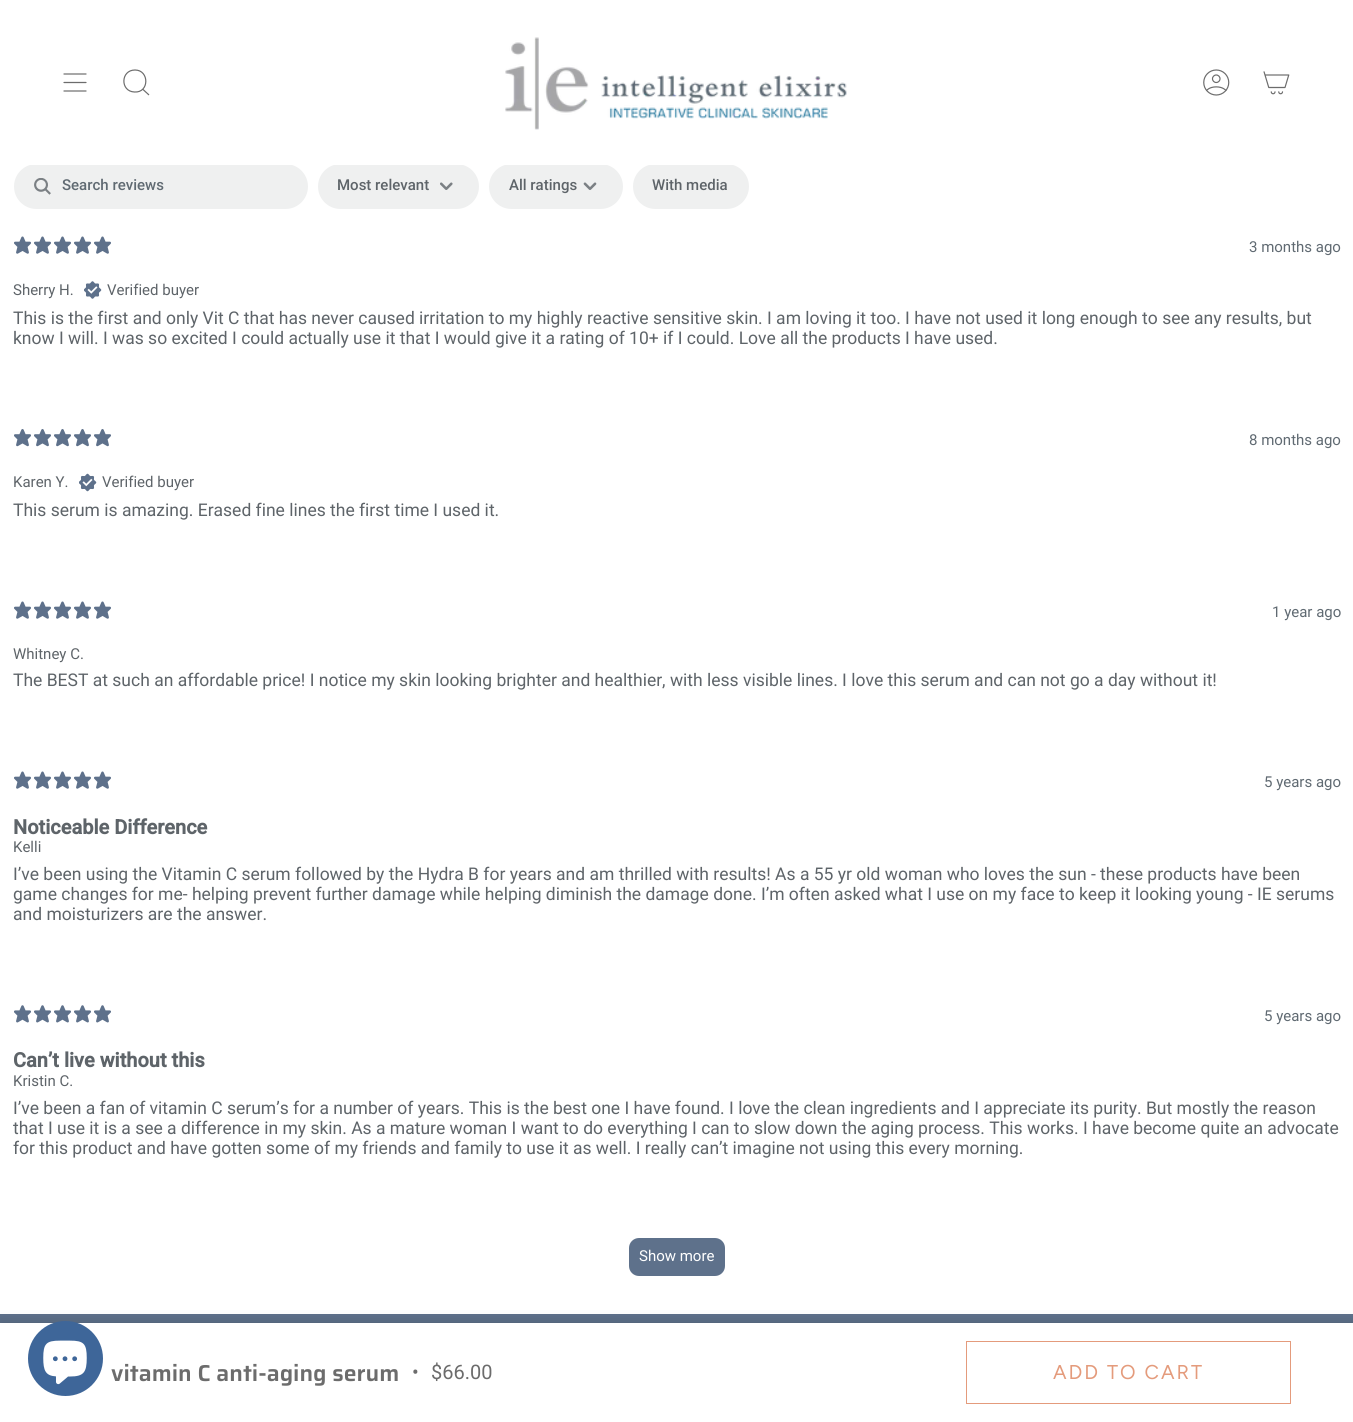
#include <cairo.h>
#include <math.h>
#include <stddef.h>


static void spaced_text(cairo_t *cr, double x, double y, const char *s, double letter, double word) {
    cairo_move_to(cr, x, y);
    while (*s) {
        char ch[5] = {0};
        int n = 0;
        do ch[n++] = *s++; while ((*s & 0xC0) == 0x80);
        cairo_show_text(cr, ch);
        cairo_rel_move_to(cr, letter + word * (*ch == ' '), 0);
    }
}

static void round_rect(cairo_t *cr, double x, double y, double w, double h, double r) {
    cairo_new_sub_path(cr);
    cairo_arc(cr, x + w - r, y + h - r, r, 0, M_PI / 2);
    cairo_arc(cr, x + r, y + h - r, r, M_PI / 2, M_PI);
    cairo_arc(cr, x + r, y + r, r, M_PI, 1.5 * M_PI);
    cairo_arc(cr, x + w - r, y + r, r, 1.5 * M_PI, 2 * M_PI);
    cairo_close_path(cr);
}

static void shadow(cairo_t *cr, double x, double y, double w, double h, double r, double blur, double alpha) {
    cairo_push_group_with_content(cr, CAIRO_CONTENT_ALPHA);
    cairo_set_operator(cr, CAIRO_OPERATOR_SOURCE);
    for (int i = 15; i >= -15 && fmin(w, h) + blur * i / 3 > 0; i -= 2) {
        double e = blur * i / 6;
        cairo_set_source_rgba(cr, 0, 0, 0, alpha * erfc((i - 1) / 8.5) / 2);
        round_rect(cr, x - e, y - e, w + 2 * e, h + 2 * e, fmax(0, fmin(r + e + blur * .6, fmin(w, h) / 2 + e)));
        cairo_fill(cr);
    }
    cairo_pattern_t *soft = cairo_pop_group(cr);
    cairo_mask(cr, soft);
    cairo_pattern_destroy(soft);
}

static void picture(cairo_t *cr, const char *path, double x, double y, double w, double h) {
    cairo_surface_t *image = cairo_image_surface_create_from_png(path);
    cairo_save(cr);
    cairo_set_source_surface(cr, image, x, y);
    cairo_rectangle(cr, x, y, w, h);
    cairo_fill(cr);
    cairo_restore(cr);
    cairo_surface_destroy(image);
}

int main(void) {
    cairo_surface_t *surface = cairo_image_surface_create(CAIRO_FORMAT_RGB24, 1353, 1422);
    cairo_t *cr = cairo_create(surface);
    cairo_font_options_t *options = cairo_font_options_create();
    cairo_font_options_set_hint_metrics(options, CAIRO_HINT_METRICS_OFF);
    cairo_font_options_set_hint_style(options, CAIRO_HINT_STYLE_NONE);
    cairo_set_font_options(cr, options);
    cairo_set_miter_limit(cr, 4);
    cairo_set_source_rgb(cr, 1, 1, 1);
    cairo_paint(cr);
    cairo_new_path(cr);
    cairo_move_to(cr, 64, 74);
    cairo_line_to(cr, 86, 74);
    cairo_move_to(cr, 64, 82.5);
    cairo_line_to(cr, 86, 82.5);
    cairo_move_to(cr, 64, 91);
    cairo_line_to(cr, 86, 91);
    cairo_set_source_rgb(cr, 0.424, 0.424, 0.424);
    cairo_set_line_width(cr, 1.2);
    cairo_set_line_cap(cr, CAIRO_LINE_CAP_ROUND);
    cairo_set_line_join(cr, CAIRO_LINE_JOIN_ROUND);
    cairo_stroke(cr);
    cairo_new_path(cr);
    cairo_move_to(cr, 135, 70);
    cairo_curve_to(cr, 149.5, 70, 149.5, 93, 134.5, 92);
    cairo_curve_to(cr, 120, 91.5, 120.5, 70, 135, 70);
    cairo_close_path(cr);
    cairo_move_to(cr, 142.5, 89);
    cairo_line_to(cr, 149, 95);
    cairo_set_line_cap(cr, CAIRO_LINE_CAP_BUTT);
    cairo_set_line_join(cr, CAIRO_LINE_JOIN_MITER);
    cairo_stroke(cr);
    picture(cr, "img1.png", 505, 37, 342, 93);
    picture(cr, "img2.png", 1203, 69, 27, 27);
    picture(cr, "img3.png", 1263, 71, 27, 24);
    cairo_set_source_rgb(cr, 0.937, 0.941, 0.941);
    round_rect(cr, 14, 164, 294, 45, 22.5);
    cairo_fill(cr);
    round_rect(cr, 318, 164, 161, 45, 22.5);
    cairo_fill(cr);
    round_rect(cr, 489, 164, 134, 45, 22.5);
    cairo_fill(cr);
    round_rect(cr, 633, 164, 116, 45, 22.5);
    cairo_fill(cr);
    cairo_set_source_rgb(cr, 1, 1, 1);
    cairo_rectangle(cr, 30, 164, 703, 1);
    cairo_fill(cr);
    picture(cr, "img4.png", 34, 178, 17, 17);
    cairo_select_font_face(cr, "Roboto Medium", CAIRO_FONT_SLANT_NORMAL, CAIRO_FONT_WEIGHT_NORMAL);
    cairo_set_font_size(cr, 15);
    cairo_set_source_rgb(cr, 0.376, 0.416, 0.447);
    cairo_move_to(cr, 62, 190);
    cairo_show_text(cr, "Search reviews");
    cairo_set_source_rgb(cr, 0.369, 0.392, 0.412);
    cairo_move_to(cr, 337, 190);
    cairo_show_text(cr, "Most relevant");
    picture(cr, "img5.png", 440, 182, 13, 8);
    cairo_move_to(cr, 509, 190);
    cairo_show_text(cr, "All ratings");
    picture(cr, "img6.png", 583, 182, 14, 8);
    cairo_move_to(cr, 652, 190);
    cairo_show_text(cr, "With media");
    picture(cr, "img7.png", 14, 236, 17, 18);
    picture(cr, "img7.png", 34, 236, 17, 18);
    picture(cr, "img7.png", 54, 236, 17, 18);
    picture(cr, "img7.png", 74, 236, 17, 18);
    picture(cr, "img7.png", 94, 236, 17, 18);
    cairo_select_font_face(cr, "Roboto", CAIRO_FONT_SLANT_NORMAL, CAIRO_FONT_WEIGHT_NORMAL);
    cairo_set_source_rgb(cr, 0.376, 0.416, 0.447);
    cairo_move_to(cr, 1249, 252);
    cairo_show_text(cr, "3 months ago");
    cairo_set_source_rgb(cr, 0.369, 0.392, 0.412);
    cairo_move_to(cr, 13, 295);
    cairo_show_text(cr, "Sherry H.");
    picture(cr, "img8.png", 84, 281, 18, 18);
    cairo_move_to(cr, 107, 295);
    cairo_show_text(cr, "Verified buyer");
    cairo_set_font_size(cr, 17.5);
    cairo_move_to(cr, 13, 324);
    cairo_show_text(cr, "This is the first and only Vit C that has never caused irritation to my highly reactive sensitive skin. I am loving it too. I have not used it long enough to see any results, but");
    cairo_move_to(cr, 13, 344);
    cairo_show_text(cr, "know I will. I was so excited I could actually use it that I would give it a rating of 10+ if I could. Love all the products I have used.");
    picture(cr, "img9.png", 14, 429, 17, 18);
    picture(cr, "img9.png", 34, 429, 17, 18);
    picture(cr, "img9.png", 54, 429, 17, 18);
    picture(cr, "img9.png", 74, 429, 17, 18);
    picture(cr, "img9.png", 94, 429, 17, 18);
    cairo_set_font_size(cr, 15);
    cairo_set_source_rgb(cr, 0.376, 0.416, 0.447);
    cairo_move_to(cr, 1249, 445);
    cairo_show_text(cr, "8 months ago");
    cairo_set_source_rgb(cr, 0.369, 0.392, 0.412);
    cairo_move_to(cr, 13, 487);
    cairo_show_text(cr, "Karen Y.");
    picture(cr, "img10.png", 79, 473, 18, 19);
    cairo_move_to(cr, 102, 487);
    cairo_show_text(cr, "Verified buyer");
    cairo_set_font_size(cr, 17.5);
    cairo_move_to(cr, 13, 516);
    cairo_show_text(cr, "This serum is amazing. Erased fine lines the first time I used it.");
    picture(cr, "img7.png", 14, 601, 17, 18);
    picture(cr, "img7.png", 34, 601, 17, 18);
    picture(cr, "img7.png", 54, 601, 17, 18);
    picture(cr, "img7.png", 74, 601, 17, 18);
    picture(cr, "img7.png", 94, 601, 17, 18);
    cairo_set_font_size(cr, 15);
    cairo_set_source_rgb(cr, 0.376, 0.416, 0.447);
    cairo_move_to(cr, 1272, 617);
    cairo_show_text(cr, "1 year ago");
    cairo_set_source_rgb(cr, 0.369, 0.392, 0.412);
    cairo_move_to(cr, 13, 659);
    cairo_show_text(cr, "Whitney C.");
    cairo_set_font_size(cr, 17.5);
    cairo_move_to(cr, 13, 686);
    cairo_show_text(cr, "The BEST at such an affordable price! I notice my skin looking brighter and healthier, with less visible lines. I love this serum and can not go a day without it!");
    picture(cr, "img7.png", 14, 771, 17, 18);
    picture(cr, "img7.png", 34, 771, 17, 18);
    picture(cr, "img7.png", 54, 771, 17, 18);
    picture(cr, "img7.png", 74, 771, 17, 18);
    picture(cr, "img7.png", 94, 771, 17, 18);
    cairo_set_font_size(cr, 15);
    cairo_set_source_rgb(cr, 0.376, 0.416, 0.447);
    cairo_move_to(cr, 1264, 787);
    cairo_show_text(cr, "5 years ago");
    cairo_select_font_face(cr, "Roboto", CAIRO_FONT_SLANT_NORMAL, CAIRO_FONT_WEIGHT_BOLD);
    cairo_set_font_size(cr, 20);
    cairo_set_source_rgb(cr, 0.369, 0.392, 0.412);
    cairo_move_to(cr, 13, 834);
    cairo_show_text(cr, "Noticeable Difference");
    cairo_select_font_face(cr, "Roboto", CAIRO_FONT_SLANT_NORMAL, CAIRO_FONT_WEIGHT_NORMAL);
    cairo_set_font_size(cr, 15);
    cairo_move_to(cr, 13, 852);
    cairo_show_text(cr, "Kelli");
    cairo_set_font_size(cr, 17.5);
    cairo_move_to(cr, 13, 880);
    cairo_show_text(cr, "I’ve been using the Vitamin C serum followed by the Hydra B for years and am thrilled with results! As a 55 yr old woman who loves the sun - these products have been");
    cairo_move_to(cr, 13, 900);
    cairo_show_text(cr, "game changes for me- helping prevent further damage while helping diminish the damage done. I’m often asked what I use on my face to keep it looking young - IE serums");
    cairo_move_to(cr, 13, 920);
    cairo_show_text(cr, "and moisturizers are the answer.");
    picture(cr, "img11.png", 14, 1005, 17, 18);
    picture(cr, "img11.png", 34, 1005, 17, 18);
    picture(cr, "img11.png", 54, 1005, 17, 18);
    picture(cr, "img11.png", 74, 1005, 17, 18);
    picture(cr, "img11.png", 94, 1005, 17, 18);
    cairo_set_font_size(cr, 15);
    cairo_set_source_rgb(cr, 0.376, 0.416, 0.447);
    cairo_move_to(cr, 1264, 1021);
    cairo_show_text(cr, "5 years ago");
    cairo_select_font_face(cr, "Roboto", CAIRO_FONT_SLANT_NORMAL, CAIRO_FONT_WEIGHT_BOLD);
    cairo_set_font_size(cr, 20);
    cairo_set_source_rgb(cr, 0.369, 0.392, 0.412);
    cairo_move_to(cr, 13, 1067);
    cairo_show_text(cr, "Can’t live without this");
    cairo_select_font_face(cr, "Roboto", CAIRO_FONT_SLANT_NORMAL, CAIRO_FONT_WEIGHT_NORMAL);
    cairo_set_font_size(cr, 15);
    cairo_move_to(cr, 13, 1086);
    cairo_show_text(cr, "Kristin C.");
    cairo_set_font_size(cr, 17.5);
    cairo_move_to(cr, 13, 1114);
    cairo_show_text(cr, "I’ve been a fan of vitamin C serum’s for a number of years. This is the best one I have found. I love the clean ingredients and I appreciate its purity. But mostly the reason");
    cairo_move_to(cr, 13, 1134);
    cairo_show_text(cr, "that I use it is a see a difference in my skin. As a mature woman I want to do everything I can to slow down the aging process. This works. I have become quite an advocate");
    cairo_move_to(cr, 13, 1154);
    cairo_show_text(cr, "for this product and have gotten some of my friends and family to use it as well. I really can’t imagine not using this every morning.");
    cairo_set_source_rgb(cr, 0.369, 0.443, 0.545);
    round_rect(cr, 629, 1238, 96, 38, 10);
    cairo_fill(cr);
    cairo_set_font_size(cr, 15);
    cairo_set_source_rgb(cr, 1, 1, 1);
    cairo_move_to(cr, 639, 1261);
    cairo_show_text(cr, "Show more");
    cairo_set_source_rgb(cr, 0.369, 0.443, 0.545);
    cairo_rectangle(cr, 0, 1314, 1353, 9);
    cairo_fill(cr);
    cairo_set_source_rgb(cr, 0, 0, 0);
    shadow(cr, 0, 1323, 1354, 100, 0, 6, 0.2);
    cairo_set_source_rgb(cr, 1, 1, 1);
    cairo_rectangle(cr, 0, 1323, 1353, 99);
    cairo_fill(cr);
    cairo_select_font_face(cr, "Saira SemiBold", CAIRO_FONT_SLANT_NORMAL, CAIRO_FONT_WEIGHT_NORMAL);
    cairo_set_font_size(cr, 23);
    cairo_set_source_rgb(cr, 0.424, 0.424, 0.424);
    cairo_move_to(cr, 111, 1381);
    cairo_show_text(cr, "vitamin C anti-aging serum");
    cairo_select_font_face(cr, "Roboto", CAIRO_FONT_SLANT_NORMAL, CAIRO_FONT_WEIGHT_NORMAL);
    cairo_set_font_size(cr, 20);
    cairo_move_to(cr, 412, 1379);
    cairo_show_text(cr, "•");
    cairo_move_to(cr, 431, 1379);
    cairo_show_text(cr, "$66.00");
    cairo_rectangle(cr, 966.5, 1341.5, 324, 62);
    cairo_set_source_rgb(cr, 0.894, 0.608, 0.486);
    cairo_set_line_width(cr, 1);
    cairo_stroke(cr);
    cairo_select_font_face(cr, "Figtree", CAIRO_FONT_SLANT_NORMAL, CAIRO_FONT_WEIGHT_NORMAL);
    spaced_text(cr, 1053, 1379, "ADD TO CART", 2, 0);
    cairo_set_source_rgb(cr, 0.243, 0.4, 0.6);
    cairo_new_path(cr);
    cairo_arc(cr, 65.5, 1358.5, 37.5, 0, 2 * M_PI);
    cairo_fill(cr);
    picture(cr, "img12.png", 43, 1340, 44, 45);
    cairo_surface_write_to_png(surface, "page.png");
    cairo_font_options_destroy(options);
    cairo_destroy(cr);
    cairo_surface_destroy(surface);
    return 0;
}
